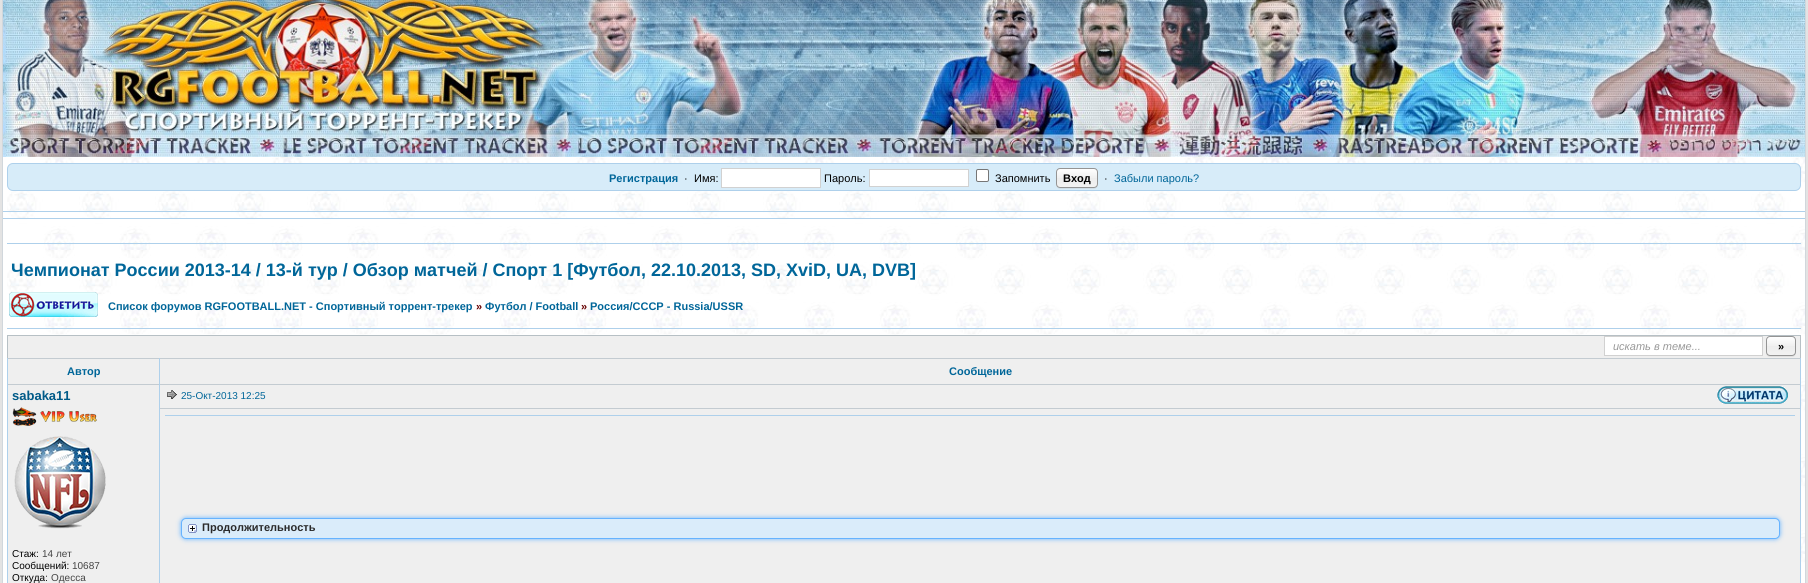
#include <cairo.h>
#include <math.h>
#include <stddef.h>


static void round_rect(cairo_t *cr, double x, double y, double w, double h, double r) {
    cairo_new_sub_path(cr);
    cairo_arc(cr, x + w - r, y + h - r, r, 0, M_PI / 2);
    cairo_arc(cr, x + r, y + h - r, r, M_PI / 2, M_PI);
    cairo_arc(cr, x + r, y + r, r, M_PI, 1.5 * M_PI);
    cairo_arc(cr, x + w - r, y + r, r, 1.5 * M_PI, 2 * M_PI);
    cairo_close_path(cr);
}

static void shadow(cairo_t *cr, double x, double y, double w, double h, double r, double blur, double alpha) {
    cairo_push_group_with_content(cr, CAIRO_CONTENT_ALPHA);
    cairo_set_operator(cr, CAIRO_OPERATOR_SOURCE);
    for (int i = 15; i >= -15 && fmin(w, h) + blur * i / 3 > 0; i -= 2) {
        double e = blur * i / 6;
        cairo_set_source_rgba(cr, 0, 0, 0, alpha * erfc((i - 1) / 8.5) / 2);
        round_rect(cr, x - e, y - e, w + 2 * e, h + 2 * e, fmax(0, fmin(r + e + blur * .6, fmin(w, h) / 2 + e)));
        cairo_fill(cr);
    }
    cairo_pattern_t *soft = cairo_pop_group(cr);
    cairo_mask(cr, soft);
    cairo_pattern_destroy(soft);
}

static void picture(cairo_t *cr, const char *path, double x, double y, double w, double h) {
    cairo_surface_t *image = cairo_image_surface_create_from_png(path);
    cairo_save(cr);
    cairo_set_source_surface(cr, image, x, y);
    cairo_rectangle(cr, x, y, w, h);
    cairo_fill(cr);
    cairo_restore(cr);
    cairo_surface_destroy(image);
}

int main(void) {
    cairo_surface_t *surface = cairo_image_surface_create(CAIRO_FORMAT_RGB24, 1808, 583);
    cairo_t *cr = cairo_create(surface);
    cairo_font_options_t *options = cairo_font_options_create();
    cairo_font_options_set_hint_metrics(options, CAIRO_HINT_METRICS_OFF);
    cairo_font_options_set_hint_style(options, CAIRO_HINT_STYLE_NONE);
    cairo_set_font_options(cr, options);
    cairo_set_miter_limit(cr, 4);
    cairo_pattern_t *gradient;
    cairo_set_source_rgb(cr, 0.89, 0.89, 0.89);
    cairo_paint(cr);
    cairo_set_source_rgb(cr, 1, 1, 1);
    cairo_rectangle(cr, 3, 157, 4, 426);
    cairo_fill(cr);
    picture(cr, "img1.png", 7, 157, 1798, 426);
    cairo_rectangle(cr, 2.5, -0.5, 1803, 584);
    cairo_set_source_rgb(cr, 0.82, 0.843, 0.863);
    cairo_set_line_width(cr, 1);
    cairo_stroke(cr);
    picture(cr, "img2.png", 3, 0, 1802, 157);
    cairo_set_source_rgb(cr, 0.843, 0.922, 0.976);
    round_rect(cr, 7.5, 163.5, 1793, 27, 5.5);
    cairo_fill_preserve(cr);
    cairo_set_source_rgb(cr, 0.682, 0.816, 0.918);
    cairo_stroke(cr);
    cairo_select_font_face(cr, "Liberation Sans", CAIRO_FONT_SLANT_NORMAL, CAIRO_FONT_WEIGHT_BOLD);
    cairo_set_font_size(cr, 11);
    cairo_set_source_rgb(cr, 0, 0.4, 0.6);
    cairo_move_to(cr, 609, 182);
    cairo_show_text(cr, "Регистрация");
    cairo_select_font_face(cr, "Liberation Sans", CAIRO_FONT_SLANT_NORMAL, CAIRO_FONT_WEIGHT_NORMAL);
    cairo_set_source_rgb(cr, 0, 0, 0);
    cairo_move_to(cr, 684, 182);
    cairo_show_text(cr, "·");
    cairo_move_to(cr, 694, 182);
    cairo_show_text(cr, "Имя:");
    cairo_set_source_rgb(cr, 1, 1, 1);
    cairo_rectangle(cr, 721.5, 168.5, 99, 19);
    cairo_fill_preserve(cr);
    cairo_set_source_rgb(cr, 0.82, 0.82, 0.82);
    cairo_stroke(cr);
    cairo_set_source_rgb(cr, 0, 0, 0);
    cairo_move_to(cr, 824, 182);
    cairo_show_text(cr, "Пароль:");
    cairo_set_source_rgb(cr, 1, 1, 1);
    cairo_rectangle(cr, 869.5, 169.5, 99, 17);
    cairo_fill_preserve(cr);
    cairo_set_source_rgb(cr, 0.82, 0.82, 0.82);
    cairo_stroke(cr);
    cairo_set_source_rgb(cr, 1, 1, 1);
    round_rect(cr, 976.5, 169.5, 12, 12, 1.5);
    cairo_fill_preserve(cr);
    cairo_set_source_rgb(cr, 0.463, 0.463, 0.463);
    cairo_stroke(cr);
    cairo_set_source_rgb(cr, 0, 0, 0);
    cairo_move_to(cr, 995, 182);
    cairo_show_text(cr, "Запомнить");
    cairo_set_source_rgb(cr, 0.816, 0.871, 0.906);
    cairo_new_path(cr);
    cairo_move_to(cr, 1056, 184);
    cairo_curve_to(cr, 1056, 190, 1061, 189, 1066, 189);
    cairo_line_to(cr, 1088, 189);
    cairo_curve_to(cr, 1093, 189, 1098, 190, 1098, 184);
    cairo_curve_to(cr, 1098, 186, 1096, 188, 1094, 188);
    cairo_line_to(cr, 1060, 188);
    cairo_curve_to(cr, 1058, 188, 1056, 186, 1056, 184);
    cairo_close_path(cr);
    cairo_fill(cr);
    cairo_save(cr);
    round_rect(cr, 1056, 168, 42, 20, 4);
    cairo_clip(cr);
    gradient = cairo_pattern_create_linear(1057, 169, 1057, 187);
    cairo_pattern_add_color_stop_rgba(gradient, 0, 1, 1, 1, 1);
    cairo_pattern_add_color_stop_rgba(gradient, 0.5, 0.941, 0.941, 0.941, 1);
    cairo_pattern_add_color_stop_rgba(gradient, 0.5, 0.929, 0.929, 0.929, 1);
    cairo_pattern_add_color_stop_rgba(gradient, 1, 0.949, 0.949, 0.949, 1);
    cairo_set_source(cr, gradient);
    cairo_pattern_destroy(gradient);
    cairo_rectangle(cr, 1056, 169, 42, 18);
    cairo_fill(cr);
    cairo_restore(cr);
    round_rect(cr, 1056.5, 168.5, 41, 19, 3.5);
    cairo_set_source_rgb(cr, 0.58, 0.58, 0.58);
    cairo_stroke(cr);
    cairo_select_font_face(cr, "Liberation Sans", CAIRO_FONT_SLANT_NORMAL, CAIRO_FONT_WEIGHT_BOLD);
    cairo_set_source_rgb(cr, 0, 0, 0);
    cairo_move_to(cr, 1063, 182);
    cairo_show_text(cr, "Вход");
    cairo_select_font_face(cr, "Liberation Sans", CAIRO_FONT_SLANT_NORMAL, CAIRO_FONT_WEIGHT_NORMAL);
    cairo_move_to(cr, 1104, 182);
    cairo_show_text(cr, "·");
    cairo_set_source_rgb(cr, 0, 0.4, 0.6);
    cairo_move_to(cr, 1114, 182);
    cairo_show_text(cr, "Забыли пароль?");
    cairo_set_source_rgb(cr, 0.682, 0.816, 0.918);
    cairo_rectangle(cr, 3, 211, 1802, 1);
    cairo_fill(cr);
    cairo_rectangle(cr, 3, 218, 1802, 1);
    cairo_fill(cr);
    cairo_rectangle(cr, 7, 243, 1794, 1);
    cairo_fill(cr);
    cairo_select_font_face(cr, "Liberation Sans", CAIRO_FONT_SLANT_NORMAL, CAIRO_FONT_WEIGHT_BOLD);
    cairo_set_font_size(cr, 18);
    cairo_set_source_rgb(cr, 0, 0.4, 0.6);
    cairo_move_to(cr, 11, 276);
    cairo_show_text(cr, "Чемпионат России 2013-14 / 13-й тур / Обзор матчей / Спорт 1 [Футбол, 22.10.2013, SD, XviD, UA, DVB]");
    picture(cr, "img3.png", 9, 292, 89, 25);
    cairo_set_font_size(cr, 11);
    cairo_move_to(cr, 108, 310);
    cairo_show_text(cr, "Список форумов RGFOOTBALL.NET - Спортивный торрент-трекер");
    cairo_set_source_rgb(cr, 0.4, 0, 0);
    cairo_move_to(cr, 476, 310);
    cairo_show_text(cr, "»");
    cairo_set_source_rgb(cr, 0, 0.4, 0.6);
    cairo_move_to(cr, 485, 310);
    cairo_show_text(cr, "Футбол / Football");
    cairo_set_source_rgb(cr, 0.4, 0, 0);
    cairo_move_to(cr, 581, 310);
    cairo_show_text(cr, "»");
    cairo_set_source_rgb(cr, 0, 0.4, 0.6);
    cairo_move_to(cr, 590, 310);
    cairo_show_text(cr, "Россия/СССР - Russia/USSR");
    cairo_set_source_rgb(cr, 0.682, 0.816, 0.918);
    cairo_rectangle(cr, 7, 328, 1794, 1);
    cairo_fill(cr);
    cairo_set_source_rgb(cr, 0.718, 0.753, 0.773);
    cairo_rectangle(cr, 7, 335, 1794, 1);
    cairo_fill(cr);
    cairo_rectangle(cr, 1800, 335, 1, 23);
    cairo_fill(cr);
    cairo_rectangle(cr, 7, 335, 1, 23);
    cairo_fill(cr);
    cairo_set_source_rgb(cr, 0.937, 0.937, 0.937);
    cairo_rectangle(cr, 8, 336, 1792, 22);
    cairo_fill(cr);
    cairo_set_source_rgb(cr, 1, 1, 1);
    cairo_rectangle(cr, 1604.5, 336.5, 158, 19);
    cairo_fill_preserve(cr);
    cairo_set_source_rgb(cr, 0.82, 0.82, 0.82);
    cairo_stroke(cr);
    cairo_select_font_face(cr, "Liberation Sans", CAIRO_FONT_SLANT_ITALIC, CAIRO_FONT_WEIGHT_NORMAL);
    cairo_set_source_rgb(cr, 0.6, 0.6, 0.6);
    cairo_move_to(cr, 1613, 350);
    cairo_show_text(cr, "искать в теме...");
    cairo_set_source_rgb(cr, 0.878, 0.878, 0.878);
    cairo_new_path(cr);
    cairo_move_to(cr, 1766, 352);
    cairo_curve_to(cr, 1766, 357.5, 1769.5, 357, 1773.5, 357);
    cairo_line_to(cr, 1788.5, 357);
    cairo_curve_to(cr, 1792.5, 357, 1796, 357.5, 1796, 352);
    cairo_curve_to(cr, 1796, 354, 1794, 356, 1792, 356);
    cairo_line_to(cr, 1770, 356);
    cairo_curve_to(cr, 1768, 356, 1766, 354, 1766, 352);
    cairo_close_path(cr);
    cairo_fill(cr);
    cairo_save(cr);
    round_rect(cr, 1766, 336, 30, 20, 4);
    cairo_clip(cr);
    gradient = cairo_pattern_create_linear(1767, 337, 1767, 355);
    cairo_pattern_add_color_stop_rgba(gradient, 0, 1, 1, 1, 1);
    cairo_pattern_add_color_stop_rgba(gradient, 0.5, 0.941, 0.941, 0.941, 1);
    cairo_pattern_add_color_stop_rgba(gradient, 0.5, 0.929, 0.929, 0.929, 1);
    cairo_pattern_add_color_stop_rgba(gradient, 1, 0.949, 0.949, 0.949, 1);
    cairo_set_source(cr, gradient);
    cairo_pattern_destroy(gradient);
    cairo_rectangle(cr, 1766, 337, 30, 18);
    cairo_fill(cr);
    cairo_restore(cr);
    round_rect(cr, 1766.5, 336.5, 29, 19, 3.5);
    cairo_set_source_rgb(cr, 0.58, 0.58, 0.58);
    cairo_stroke(cr);
    cairo_select_font_face(cr, "Liberation Sans", CAIRO_FONT_SLANT_NORMAL, CAIRO_FONT_WEIGHT_BOLD);
    cairo_set_source_rgb(cr, 0, 0, 0);
    cairo_move_to(cr, 1778, 350);
    cairo_show_text(cr, "»");
    cairo_set_source_rgb(cr, 0.682, 0.816, 0.918);
    cairo_rectangle(cr, 1800, 358, 1, 225);
    cairo_fill(cr);
    cairo_rectangle(cr, 7, 358, 1, 225);
    cairo_fill(cr);
    cairo_set_source_rgb(cr, 0.937, 0.937, 0.937);
    cairo_rectangle(cr, 8, 359, 151, 25);
    cairo_fill(cr);
    cairo_set_source_rgb(cr, 0.765, 0.796, 0.82);
    cairo_rectangle(cr, 8, 358, 1792, 1);
    cairo_fill(cr);
    cairo_set_source_rgb(cr, 0.682, 0.816, 0.918);
    cairo_rectangle(cr, 159, 358, 1, 26);
    cairo_fill(cr);
    cairo_set_source_rgb(cr, 0, 0.4, 0.6);
    cairo_move_to(cr, 67, 375);
    cairo_show_text(cr, "Автор");
    cairo_set_source_rgb(cr, 0.937, 0.937, 0.937);
    cairo_rectangle(cr, 160, 359, 1640, 25);
    cairo_fill(cr);
    cairo_set_source_rgb(cr, 0, 0.4, 0.6);
    cairo_move_to(cr, 949, 375);
    cairo_show_text(cr, "Сообщение");
    cairo_set_source_rgb(cr, 0.937, 0.937, 0.937);
    cairo_rectangle(cr, 8, 385, 1792, 198);
    cairo_fill(cr);
    cairo_set_source_rgb(cr, 0.765, 0.796, 0.82);
    cairo_rectangle(cr, 8, 384, 1792, 1);
    cairo_fill(cr);
    cairo_set_source_rgb(cr, 0.682, 0.816, 0.918);
    cairo_rectangle(cr, 159, 384, 1, 199);
    cairo_fill(cr);
    cairo_set_font_size(cr, 13);
    cairo_set_source_rgb(cr, 0, 0.353, 0.533);
    cairo_move_to(cr, 12, 400);
    cairo_show_text(cr, "sabaka11");
    picture(cr, "img4.png", 12, 407, 85, 19);
    picture(cr, "img5.png", 14, 436, 92, 93);
    cairo_select_font_face(cr, "Liberation Sans", CAIRO_FONT_SLANT_NORMAL, CAIRO_FONT_WEIGHT_NORMAL);
    cairo_set_font_size(cr, 10);
    cairo_set_source_rgb(cr, 0, 0, 0);
    cairo_move_to(cr, 12, 557);
    cairo_show_text(cr, "Стаж:");
    cairo_set_source_rgb(cr, 0.267, 0.267, 0.267);
    cairo_move_to(cr, 42, 557);
    cairo_show_text(cr, "14 лет");
    cairo_set_source_rgb(cr, 0, 0, 0);
    cairo_move_to(cr, 12, 569);
    cairo_show_text(cr, "Сообщений:");
    cairo_set_source_rgb(cr, 0.267, 0.267, 0.267);
    cairo_move_to(cr, 72, 569);
    cairo_show_text(cr, "10687");
    cairo_set_source_rgb(cr, 0, 0, 0);
    cairo_move_to(cr, 12, 581);
    cairo_show_text(cr, "Откуда:");
    cairo_set_source_rgb(cr, 0.267, 0.267, 0.267);
    cairo_move_to(cr, 51, 581);
    cairo_show_text(cr, "Одесса");
    cairo_set_source_rgb(cr, 0.765, 0.796, 0.82);
    cairo_rectangle(cr, 160, 408, 1640, 1);
    cairo_fill(cr);
    picture(cr, "img6.png", 167, 390, 10, 9);
    cairo_set_source_rgb(cr, 0, 0.4, 0.6);
    cairo_move_to(cr, 181, 399);
    cairo_show_text(cr, "25-Окт-2013 12:25");
    picture(cr, "img7.png", 1717, 386, 71, 18);
    cairo_set_source_rgb(cr, 0.682, 0.816, 0.918);
    cairo_rectangle(cr, 165, 415, 1630, 1);
    cairo_fill(cr);
    cairo_set_source_rgb(cr, 0.4, 0.702, 1);
    shadow(cr, 181, 518, 1599, 21, 5, 2.5, 1);
    cairo_set_source_rgb(cr, 0.855, 0.925, 0.98);
    round_rect(cr, 181.5, 518.5, 1598, 20, 4.5);
    cairo_fill_preserve(cr);
    cairo_set_source_rgb(cr, 0.4, 0.702, 1);
    cairo_stroke(cr);
    picture(cr, "img8.png", 188, 524, 9, 9);
    cairo_select_font_face(cr, "Liberation Sans", CAIRO_FONT_SLANT_NORMAL, CAIRO_FONT_WEIGHT_BOLD);
    cairo_set_font_size(cr, 11);
    cairo_set_source_rgb(cr, 0.165, 0.165, 0.165);
    cairo_move_to(cr, 202, 531);
    cairo_show_text(cr, "Продолжительность");
    cairo_surface_write_to_png(surface, "page.png");
    cairo_font_options_destroy(options);
    cairo_destroy(cr);
    cairo_surface_destroy(surface);
    return 0;
}
